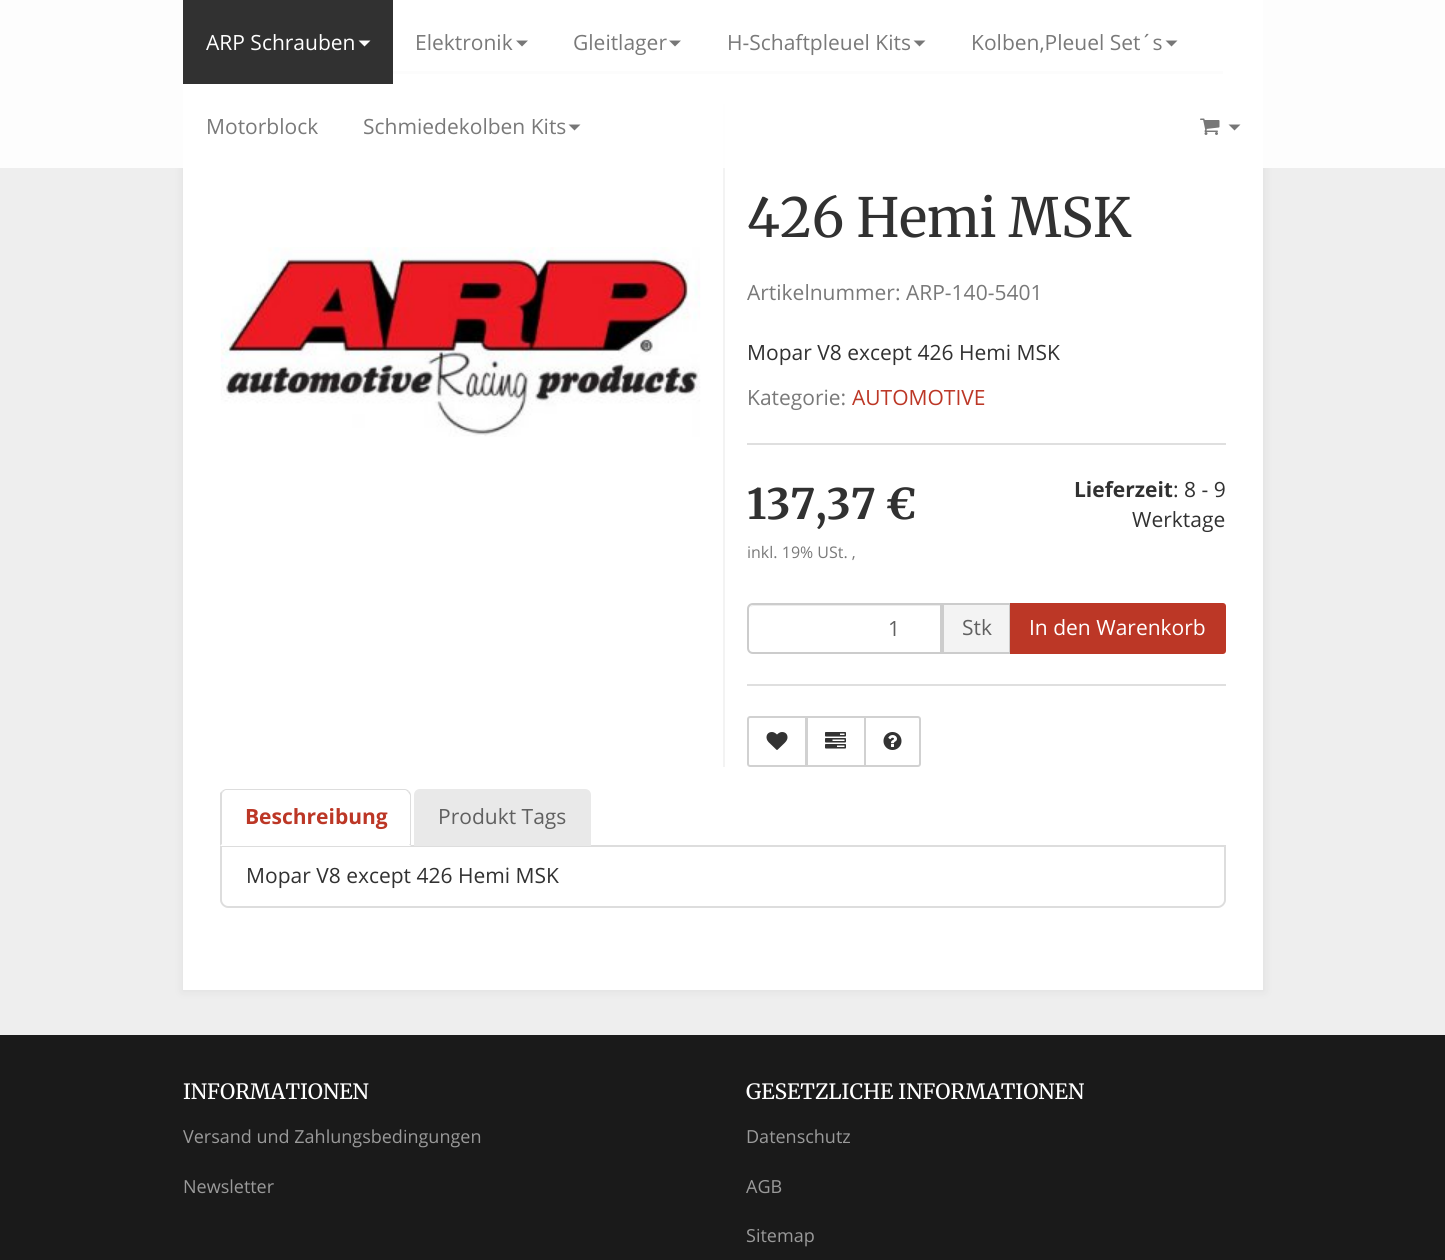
#include <cairo.h>
#include <math.h>
#include <stddef.h>


static void round_rect(cairo_t *cr, double x, double y, double w, double h, double r) {
    cairo_new_sub_path(cr);
    cairo_arc(cr, x + w - r, y + h - r, r, 0, M_PI / 2);
    cairo_arc(cr, x + r, y + h - r, r, M_PI / 2, M_PI);
    cairo_arc(cr, x + r, y + r, r, M_PI, 1.5 * M_PI);
    cairo_arc(cr, x + w - r, y + r, r, 1.5 * M_PI, 2 * M_PI);
    cairo_close_path(cr);
}

static void shadow(cairo_t *cr, double x, double y, double w, double h, double r, double blur, double alpha) {
    cairo_push_group_with_content(cr, CAIRO_CONTENT_ALPHA);
    cairo_set_operator(cr, CAIRO_OPERATOR_SOURCE);
    for (int i = 15; i >= -15 && fmin(w, h) + blur * i / 3 > 0; i -= 2) {
        double e = blur * i / 6;
        cairo_set_source_rgba(cr, 0, 0, 0, alpha * erfc((i - 1) / 8.5) / 2);
        round_rect(cr, x - e, y - e, w + 2 * e, h + 2 * e, fmax(0, fmin(r + e + blur * .6, fmin(w, h) / 2 + e)));
        cairo_fill(cr);
    }
    cairo_pattern_t *soft = cairo_pop_group(cr);
    cairo_mask(cr, soft);
    cairo_pattern_destroy(soft);
}

static void picture(cairo_t *cr, const char *path, double x, double y, double w, double h) {
    cairo_surface_t *image = cairo_image_surface_create_from_png(path);
    cairo_save(cr);
    cairo_set_source_surface(cr, image, x, y);
    cairo_rectangle(cr, x, y, w, h);
    cairo_fill(cr);
    cairo_restore(cr);
    cairo_surface_destroy(image);
}

int main(void) {
    cairo_surface_t *surface = cairo_image_surface_create(CAIRO_FORMAT_RGB24, 1445, 1260);
    cairo_t *cr = cairo_create(surface);
    cairo_font_options_t *options = cairo_font_options_create();
    cairo_font_options_set_hint_metrics(options, CAIRO_HINT_METRICS_OFF);
    cairo_font_options_set_hint_style(options, CAIRO_HINT_STYLE_NONE);
    cairo_set_font_options(cr, options);
    cairo_set_miter_limit(cr, 4);
    cairo_set_source_rgb(cr, 0.933, 0.933, 0.933);
    cairo_paint(cr);
    cairo_set_source_rgb(cr, 0.416, 0.416, 0.416);
    shadow(cr, 182, -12, 1083, 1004, 0, 4, 0.1);
    cairo_set_source_rgb(cr, 1, 1, 1);
    cairo_rectangle(cr, 183, 0, 1080, 990);
    cairo_fill(cr);
    cairo_set_source_rgb(cr, 0.875, 0.875, 0.875);
    cairo_rectangle(cr, 393, 71, 830, 3);
    cairo_fill(cr);
    cairo_set_source_rgb(cr, 0.953, 0.953, 0.953);
    cairo_rectangle(cr, 723, 104, 2, 663);
    cairo_fill(cr);
    cairo_set_source_rgba(cr, 1, 1, 1, 0.9);
    cairo_rectangle(cr, 0, 0, 1445, 168);
    cairo_fill(cr);
    cairo_set_source_rgb(cr, 0.192, 0.192, 0.192);
    cairo_rectangle(cr, 183, 0, 210, 84);
    cairo_fill(cr);
    cairo_select_font_face(cr, "Open Sans", CAIRO_FONT_SLANT_NORMAL, CAIRO_FONT_WEIGHT_NORMAL);
    cairo_set_font_size(cr, 21);
    cairo_set_source_rgb(cr, 1, 1, 1);
    cairo_move_to(cr, 206, 50);
    cairo_show_text(cr, "ARP Schrauben");
    cairo_new_path(cr);
    cairo_move_to(cr, 358.5, 40.5);
    cairo_line_to(cr, 370.5, 40.5);
    cairo_line_to(cr, 364.5, 46.5);
    cairo_close_path(cr);
    cairo_fill(cr);
    cairo_set_source_rgb(cr, 0.475, 0.475, 0.475);
    cairo_move_to(cr, 415, 50);
    cairo_show_text(cr, "Elektronik");
    cairo_set_source_rgb(cr, 0.467, 0.467, 0.467);
    cairo_new_path(cr);
    cairo_move_to(cr, 516, 40.5);
    cairo_line_to(cr, 528, 40.5);
    cairo_line_to(cr, 522, 46.5);
    cairo_close_path(cr);
    cairo_fill(cr);
    cairo_set_source_rgb(cr, 0.475, 0.475, 0.475);
    cairo_move_to(cr, 573, 50);
    cairo_show_text(cr, "Gleitlager");
    cairo_set_source_rgb(cr, 0.467, 0.467, 0.467);
    cairo_new_path(cr);
    cairo_move_to(cr, 669, 40.5);
    cairo_line_to(cr, 681, 40.5);
    cairo_line_to(cr, 675, 46.5);
    cairo_close_path(cr);
    cairo_fill(cr);
    cairo_set_source_rgb(cr, 0.475, 0.475, 0.475);
    cairo_move_to(cr, 727, 50);
    cairo_show_text(cr, "H-Schaftpleuel Kits");
    cairo_set_source_rgb(cr, 0.467, 0.467, 0.467);
    cairo_new_path(cr);
    cairo_move_to(cr, 913.5, 40.5);
    cairo_line_to(cr, 925.5, 40.5);
    cairo_line_to(cr, 919.5, 46.5);
    cairo_close_path(cr);
    cairo_fill(cr);
    cairo_set_source_rgb(cr, 0.475, 0.475, 0.475);
    cairo_move_to(cr, 971, 50);
    cairo_show_text(cr, "Kolben,Pleuel Set´s");
    cairo_set_source_rgb(cr, 0.467, 0.467, 0.467);
    cairo_new_path(cr);
    cairo_move_to(cr, 1165.5, 40.5);
    cairo_line_to(cr, 1177.5, 40.5);
    cairo_line_to(cr, 1171.5, 46.5);
    cairo_close_path(cr);
    cairo_fill(cr);
    cairo_set_source_rgb(cr, 0.475, 0.475, 0.475);
    cairo_move_to(cr, 206, 134);
    cairo_show_text(cr, "Motorblock");
    cairo_move_to(cr, 363, 134);
    cairo_show_text(cr, "Schmiedekolben Kits");
    cairo_set_source_rgb(cr, 0.467, 0.467, 0.467);
    cairo_new_path(cr);
    cairo_move_to(cr, 568.5, 124.5);
    cairo_line_to(cr, 580.5, 124.5);
    cairo_line_to(cr, 574.5, 130.5);
    cairo_close_path(cr);
    cairo_fill(cr);
    picture(cr, "img1.png", 1200, 118, 20, 17);
    cairo_new_path(cr);
    cairo_move_to(cr, 1228.5, 124.5);
    cairo_line_to(cr, 1240.5, 124.5);
    cairo_line_to(cr, 1234.5, 130.5);
    cairo_close_path(cr);
    cairo_fill(cr);
    picture(cr, "img2.png", 220, 247, 481, 190);
    cairo_select_font_face(cr, "Merriweather", CAIRO_FONT_SLANT_NORMAL, CAIRO_FONT_WEIGHT_NORMAL);
    cairo_set_font_size(cr, 54);
    cairo_set_source_rgb(cr, 0.192, 0.192, 0.192);
    cairo_move_to(cr, 747, 237);
    cairo_show_text(cr, "426 Hemi MSK");
    cairo_select_font_face(cr, "Open Sans", CAIRO_FONT_SLANT_NORMAL, CAIRO_FONT_WEIGHT_NORMAL);
    cairo_set_font_size(cr, 21);
    cairo_set_source_rgb(cr, 0.475, 0.475, 0.475);
    cairo_move_to(cr, 747, 300);
    cairo_show_text(cr, "Artikelnummer: ARP-140-5401");
    cairo_set_source_rgb(cr, 0.192, 0.192, 0.192);
    cairo_move_to(cr, 747, 360);
    cairo_show_text(cr, "Mopar V8 except 426 Hemi MSK");
    cairo_set_source_rgb(cr, 0.475, 0.475, 0.475);
    cairo_move_to(cr, 747, 405);
    cairo_show_text(cr, "Kategorie:");
    cairo_set_source_rgb(cr, 0.737, 0.216, 0.149);
    cairo_move_to(cr, 852, 405);
    cairo_show_text(cr, "AUTOMOTIVE");
    cairo_set_source_rgb(cr, 0.875, 0.875, 0.875);
    cairo_rectangle(cr, 747, 443, 479, 2);
    cairo_fill(cr);
    cairo_select_font_face(cr, "Merriweather", CAIRO_FONT_SLANT_NORMAL, CAIRO_FONT_WEIGHT_BOLD);
    cairo_set_font_size(cr, 42);
    cairo_set_source_rgb(cr, 0.192, 0.192, 0.192);
    cairo_move_to(cr, 747, 519);
    cairo_show_text(cr, "137,37 €");
    cairo_select_font_face(cr, "Open Sans", CAIRO_FONT_SLANT_NORMAL, CAIRO_FONT_WEIGHT_NORMAL);
    cairo_set_font_size(cr, 16);
    cairo_set_source_rgb(cr, 0.475, 0.475, 0.475);
    cairo_move_to(cr, 747, 558);
    cairo_show_text(cr, "inkl. 19% USt. ,");
    cairo_select_font_face(cr, "Open Sans", CAIRO_FONT_SLANT_NORMAL, CAIRO_FONT_WEIGHT_BOLD);
    cairo_set_font_size(cr, 21);
    cairo_set_source_rgb(cr, 0.192, 0.192, 0.192);
    cairo_move_to(cr, 1074, 497);
    cairo_show_text(cr, "Lieferzeit");
    cairo_select_font_face(cr, "Open Sans", CAIRO_FONT_SLANT_NORMAL, CAIRO_FONT_WEIGHT_NORMAL);
    cairo_move_to(cr, 1173, 497);
    cairo_show_text(cr, ": 8 - 9");
    cairo_move_to(cr, 1132, 527);
    cairo_show_text(cr, "Werktage");
    cairo_set_source_rgb(cr, 0.925, 0.925, 0.925);
    cairo_new_path(cr);
    cairo_move_to(cr, 753, 606);
    cairo_line_to(cr, 940, 606);
    cairo_line_to(cr, 940, 653);
    cairo_line_to(cr, 941, 653);
    cairo_line_to(cr, 941, 605);
    cairo_line_to(cr, 754, 605);
    cairo_curve_to(cr, 752, 605, 751, 606, 750, 607);
    cairo_close_path(cr);
    cairo_fill(cr);
    cairo_new_path(cr);
    cairo_move_to(cr, 753, 604);
    cairo_line_to(cr, 941, 604);
    cairo_line_to(cr, 941, 653);
    cairo_line_to(cr, 753, 653);
    cairo_curve_to(cr, 750, 653, 748, 651, 748, 648);
    cairo_line_to(cr, 748, 609);
    cairo_curve_to(cr, 748, 606, 750, 604, 753, 604);
    cairo_close_path(cr);
    cairo_set_source_rgb(cr, 0.8, 0.8, 0.8);
    cairo_stroke(cr);
    cairo_set_source_rgb(cr, 0.376, 0.376, 0.376);
    cairo_move_to(cr, 888, 636);
    cairo_show_text(cr, "1");
    cairo_set_source_rgb(cr, 0.953, 0.953, 0.953);
    cairo_rectangle(cr, 943, 604, 67, 49);
    cairo_fill_preserve(cr);
    cairo_set_source_rgb(cr, 0.8, 0.8, 0.8);
    cairo_stroke(cr);
    cairo_set_source_rgb(cr, 0.376, 0.376, 0.376);
    cairo_move_to(cr, 962, 635);
    cairo_show_text(cr, "Stk");
    cairo_set_source_rgb(cr, 0.737, 0.216, 0.149);
    cairo_new_path(cr);
    cairo_move_to(cr, 1011, 604);
    cairo_line_to(cr, 1223, 604);
    cairo_curve_to(cr, 1224, 604, 1225, 605, 1225, 606);
    cairo_line_to(cr, 1225, 651);
    cairo_curve_to(cr, 1225, 652, 1224, 653, 1223, 653);
    cairo_line_to(cr, 1011, 653);
    cairo_close_path(cr);
    cairo_fill_preserve(cr);
    cairo_stroke(cr);
    cairo_set_source_rgb(cr, 1, 1, 1);
    cairo_move_to(cr, 1029, 635);
    cairo_show_text(cr, "In den Warenkorb");
    cairo_set_source_rgb(cr, 0.875, 0.875, 0.875);
    cairo_rectangle(cr, 747, 684, 479, 2);
    cairo_fill(cr);
    cairo_new_path(cr);
    cairo_move_to(cr, 750, 717);
    cairo_line_to(cr, 806, 717);
    cairo_line_to(cr, 806, 766);
    cairo_line_to(cr, 750, 766);
    cairo_curve_to(cr, 749, 766, 748, 765, 748, 764);
    cairo_line_to(cr, 748, 719);
    cairo_curve_to(cr, 748, 718, 749, 717, 750, 717);
    cairo_close_path(cr);
    cairo_set_source_rgb(cr, 0.82, 0.82, 0.82);
    cairo_stroke(cr);
    picture(cr, "img3.png", 766, 732, 22, 18);
    cairo_rectangle(cr, 807, 717, 58, 49);
    cairo_stroke(cr);
    picture(cr, "img4.png", 825, 732, 21, 17);
    cairo_set_source_rgb(cr, 1, 1, 1);
    cairo_new_path(cr);
    cairo_move_to(cr, 865, 717);
    cairo_line_to(cr, 918, 717);
    cairo_curve_to(cr, 919, 717, 920, 718, 920, 719);
    cairo_line_to(cr, 920, 764);
    cairo_curve_to(cr, 920, 765, 919, 766, 918, 766);
    cairo_line_to(cr, 865, 766);
    cairo_close_path(cr);
    cairo_fill_preserve(cr);
    cairo_set_source_rgb(cr, 0.82, 0.82, 0.82);
    cairo_stroke(cr);
    picture(cr, "img5.png", 883, 732, 19, 18);
    cairo_set_source_rgb(cr, 0.867, 0.867, 0.867);
    cairo_set_fill_rule(cr, CAIRO_FILL_RULE_EVEN_ODD);
    cairo_new_path(cr);
    cairo_move_to(cr, 220, 846);
    cairo_line_to(cr, 1226, 846);
    cairo_line_to(cr, 1226, 900);
    cairo_curve_to(cr, 1226, 904, 1222, 908, 1218, 908);
    cairo_line_to(cr, 228, 908);
    cairo_curve_to(cr, 224, 908, 220, 904, 220, 900);
    cairo_close_path(cr);
    cairo_move_to(cr, 222, 846);
    cairo_line_to(cr, 1224, 846);
    cairo_line_to(cr, 1224, 900);
    cairo_curve_to(cr, 1224, 903, 1221, 906, 1218, 906);
    cairo_line_to(cr, 228, 906);
    cairo_curve_to(cr, 225, 906, 222, 903, 222, 900);
    cairo_close_path(cr);
    cairo_fill(cr);
    cairo_rectangle(cr, 221, 845, 1005, 2);
    cairo_fill(cr);
    cairo_set_source_rgb(cr, 1, 1, 1);
    cairo_new_path(cr);
    cairo_move_to(cr, 227, 789);
    cairo_line_to(cr, 405, 789);
    cairo_curve_to(cr, 408.5, 789, 411, 791.5, 411, 795);
    cairo_line_to(cr, 411, 846);
    cairo_line_to(cr, 221, 846);
    cairo_line_to(cr, 221, 795);
    cairo_curve_to(cr, 221, 791.5, 223.5, 789, 227, 789);
    cairo_close_path(cr);
    cairo_fill(cr);
    cairo_set_source_rgb(cr, 0.867, 0.867, 0.867);
    cairo_set_fill_rule(cr, CAIRO_FILL_RULE_WINDING);
    cairo_new_path(cr);
    cairo_move_to(cr, 226, 789);
    cairo_curve_to(cr, 225, 789, 223, 790, 222, 791);
    cairo_line_to(cr, 223, 792);
    cairo_curve_to(cr, 224, 791, 225, 790, 226, 790);
    cairo_line_to(cr, 405, 790);
    cairo_curve_to(cr, 406, 790, 407, 791, 408, 792);
    cairo_line_to(cr, 409, 791);
    cairo_curve_to(cr, 408, 790, 406, 789, 405, 789);
    cairo_close_path(cr);
    cairo_fill(cr);
    cairo_new_path(cr);
    cairo_move_to(cr, 411, 846);
    cairo_line_to(cr, 411, 795);
    cairo_curve_to(cr, 411, 794, 410, 792, 409, 791);
    cairo_line_to(cr, 408, 792);
    cairo_line_to(cr, 410, 795);
    cairo_line_to(cr, 410, 844);
    cairo_line_to(cr, 409, 844);
    cairo_close_path(cr);
    cairo_fill(cr);
    cairo_new_path(cr);
    cairo_move_to(cr, 220, 846);
    cairo_line_to(cr, 220, 793);
    cairo_line_to(cr, 222, 791);
    cairo_line_to(cr, 223, 792);
    cairo_curve_to(cr, 222, 793, 222, 794, 222, 795);
    cairo_line_to(cr, 222, 844);
    cairo_close_path(cr);
    cairo_fill(cr);
    cairo_select_font_face(cr, "Open Sans", CAIRO_FONT_SLANT_NORMAL, CAIRO_FONT_WEIGHT_BOLD);
    cairo_set_source_rgb(cr, 0.737, 0.216, 0.149);
    cairo_move_to(cr, 245, 824);
    cairo_show_text(cr, "Beschreibung");
    cairo_set_source_rgb(cr, 0.914, 0.914, 0.914);
    cairo_new_path(cr);
    cairo_move_to(cr, 420, 789);
    cairo_line_to(cr, 585, 789);
    cairo_curve_to(cr, 588.5, 789, 591, 791.5, 591, 795);
    cairo_line_to(cr, 591, 846);
    cairo_line_to(cr, 414, 846);
    cairo_line_to(cr, 414, 795);
    cairo_curve_to(cr, 414, 791.5, 416.5, 789, 420, 789);
    cairo_close_path(cr);
    cairo_fill(cr);
    cairo_select_font_face(cr, "Open Sans", CAIRO_FONT_SLANT_NORMAL, CAIRO_FONT_WEIGHT_NORMAL);
    cairo_set_source_rgb(cr, 0.376, 0.376, 0.376);
    cairo_move_to(cr, 438, 824);
    cairo_show_text(cr, "Produkt Tags");
    cairo_set_source_rgb(cr, 0.192, 0.192, 0.192);
    cairo_move_to(cr, 246, 883);
    cairo_show_text(cr, "Mopar V8 except 426 Hemi MSK");
    cairo_set_source_rgb(cr, 0.102, 0.102, 0.102);
    cairo_rectangle(cr, 0, 1035, 1445, 225);
    cairo_fill(cr);
    cairo_select_font_face(cr, "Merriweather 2", CAIRO_FONT_SLANT_NORMAL, CAIRO_FONT_WEIGHT_NORMAL);
    cairo_set_source_rgb(cr, 1, 1, 1);
    cairo_move_to(cr, 183, 1099);
    cairo_show_text(cr, "INFORMATIONEN");
    cairo_select_font_face(cr, "Open Sans", CAIRO_FONT_SLANT_NORMAL, CAIRO_FONT_WEIGHT_NORMAL);
    cairo_set_font_size(cr, 18);
    cairo_set_source_rgb(cr, 0.604, 0.604, 0.604);
    cairo_move_to(cr, 183, 1143);
    cairo_show_text(cr, "Versand und Zahlungsbedingungen");
    cairo_move_to(cr, 183, 1193);
    cairo_show_text(cr, "Newsletter");
    cairo_select_font_face(cr, "Merriweather 2", CAIRO_FONT_SLANT_NORMAL, CAIRO_FONT_WEIGHT_NORMAL);
    cairo_set_font_size(cr, 21);
    cairo_set_source_rgb(cr, 1, 1, 1);
    cairo_move_to(cr, 746, 1099);
    cairo_show_text(cr, "GESETZLICHE INFORMATIONEN");
    cairo_select_font_face(cr, "Open Sans", CAIRO_FONT_SLANT_NORMAL, CAIRO_FONT_WEIGHT_NORMAL);
    cairo_set_font_size(cr, 18);
    cairo_set_source_rgb(cr, 0.604, 0.604, 0.604);
    cairo_move_to(cr, 746, 1143);
    cairo_show_text(cr, "Datenschutz");
    cairo_move_to(cr, 746, 1193);
    cairo_show_text(cr, "AGB");
    cairo_move_to(cr, 746, 1242);
    cairo_show_text(cr, "Sitemap");
    cairo_surface_write_to_png(surface, "page.png");
    cairo_font_options_destroy(options);
    cairo_destroy(cr);
    cairo_surface_destroy(surface);
    return 0;
}
